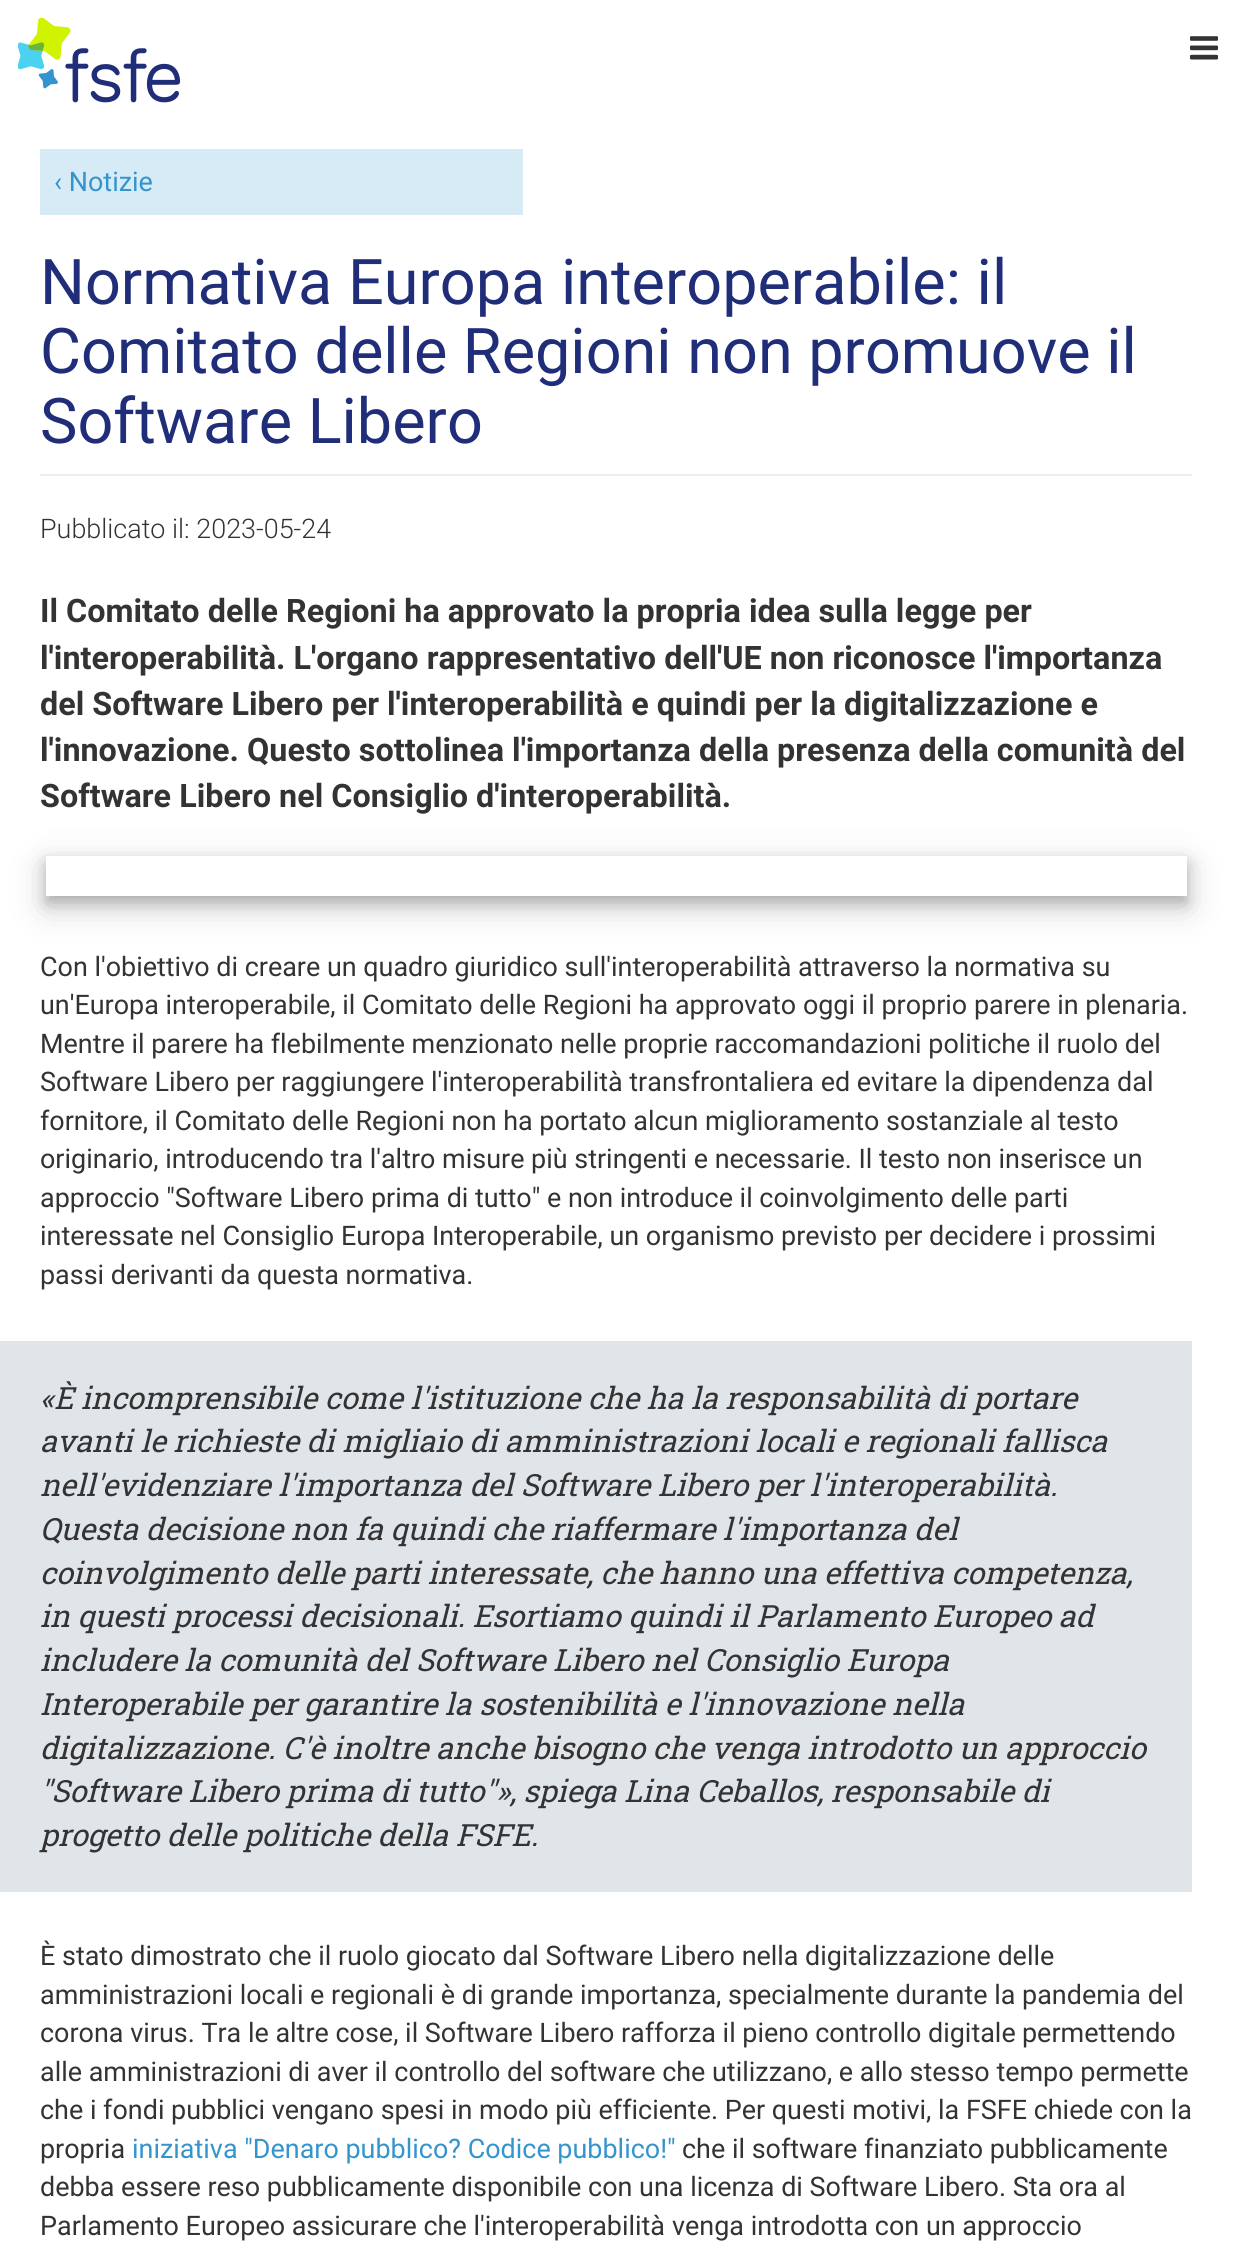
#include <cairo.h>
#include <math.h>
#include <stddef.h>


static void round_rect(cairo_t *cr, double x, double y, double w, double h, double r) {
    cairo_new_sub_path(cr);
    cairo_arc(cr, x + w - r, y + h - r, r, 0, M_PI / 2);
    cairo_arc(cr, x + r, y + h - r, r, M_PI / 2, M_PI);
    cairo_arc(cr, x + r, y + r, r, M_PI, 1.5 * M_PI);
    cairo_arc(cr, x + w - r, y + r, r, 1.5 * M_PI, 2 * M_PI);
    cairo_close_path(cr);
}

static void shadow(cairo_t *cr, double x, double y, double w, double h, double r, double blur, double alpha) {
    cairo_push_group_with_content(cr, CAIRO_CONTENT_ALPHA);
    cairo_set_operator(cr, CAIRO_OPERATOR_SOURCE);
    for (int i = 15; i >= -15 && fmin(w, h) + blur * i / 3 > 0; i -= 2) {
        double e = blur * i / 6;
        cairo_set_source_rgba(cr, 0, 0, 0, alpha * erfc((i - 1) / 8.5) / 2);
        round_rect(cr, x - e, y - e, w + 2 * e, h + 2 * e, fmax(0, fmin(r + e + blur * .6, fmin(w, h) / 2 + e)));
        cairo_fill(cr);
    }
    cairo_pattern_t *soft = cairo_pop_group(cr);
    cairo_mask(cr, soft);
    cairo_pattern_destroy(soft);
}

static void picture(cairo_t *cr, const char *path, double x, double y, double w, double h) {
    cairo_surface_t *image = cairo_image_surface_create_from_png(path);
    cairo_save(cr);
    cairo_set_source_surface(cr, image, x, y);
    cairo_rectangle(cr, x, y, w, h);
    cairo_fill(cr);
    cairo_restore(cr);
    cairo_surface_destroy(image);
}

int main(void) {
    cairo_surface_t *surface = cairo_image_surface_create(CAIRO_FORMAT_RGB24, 1257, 2245);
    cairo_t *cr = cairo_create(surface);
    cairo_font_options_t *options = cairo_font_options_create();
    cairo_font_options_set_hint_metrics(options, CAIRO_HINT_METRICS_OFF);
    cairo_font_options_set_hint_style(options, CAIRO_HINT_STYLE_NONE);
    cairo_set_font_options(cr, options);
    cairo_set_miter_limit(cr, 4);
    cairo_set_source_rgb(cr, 1, 1, 1);
    cairo_paint(cr);
    picture(cr, "img1.png", 18, 18, 162, 85);
    picture(cr, "img2.png", 1190, 36, 28, 24);
    cairo_set_source_rgb(cr, 0.843, 0.918, 0.965);
    cairo_rectangle(cr, 40, 149, 483, 66);
    cairo_fill(cr);
    cairo_select_font_face(cr, "Roboto", CAIRO_FONT_SLANT_NORMAL, CAIRO_FONT_WEIGHT_NORMAL);
    cairo_set_font_size(cr, 26.95);
    cairo_set_source_rgb(cr, 0.2, 0.58, 0.808);
    cairo_move_to(cr, 54, 191);
    cairo_show_text(cr, "‹ Notizie");
    cairo_set_source_rgb(cr, 0.933, 0.933, 0.933);
    cairo_rectangle(cr, 40, 474, 1152, 2);
    cairo_fill(cr);
    cairo_set_font_size(cr, 63);
    cairo_set_source_rgb(cr, 0.125, 0.176, 0.475);
    cairo_move_to(cr, 40, 304);
    cairo_show_text(cr, "Normativa Europa interoperabile: il");
    cairo_move_to(cr, 40, 373);
    cairo_show_text(cr, "Comitato delle Regioni non promuove il");
    cairo_move_to(cr, 40, 443);
    cairo_show_text(cr, "Software Libero");
    cairo_select_font_face(cr, "Roboto Light", CAIRO_FONT_SLANT_NORMAL, CAIRO_FONT_WEIGHT_NORMAL);
    cairo_set_font_size(cr, 26.95);
    cairo_set_source_rgb(cr, 0.2, 0.2, 0.2);
    cairo_move_to(cr, 40, 538);
    cairo_show_text(cr, "Pubblicato il: 2023-05-24");
    cairo_select_font_face(cr, "Roboto", CAIRO_FONT_SLANT_NORMAL, CAIRO_FONT_WEIGHT_BOLD);
    cairo_set_font_size(cr, 32.35);
    cairo_move_to(cr, 40, 622);
    cairo_show_text(cr, "Il Comitato delle Regioni ha approvato la propria idea sulla legge per");
    cairo_move_to(cr, 40, 669);
    cairo_show_text(cr, "l'interoperabilità. L'organo rappresentativo dell'UE non riconosce l'importanza");
    cairo_move_to(cr, 40, 715);
    cairo_show_text(cr, "del Software Libero per l'interoperabilità e quindi per la");
    cairo_move_to(cr, 844, 715);
    cairo_show_text(cr, "digitalizzazione e");
    cairo_move_to(cr, 40, 761);
    cairo_show_text(cr, "l'innovazione. Questo sottolinea l'importanza della");
    cairo_move_to(cr, 777, 761);
    cairo_show_text(cr, "presenza della comunità del");
    cairo_move_to(cr, 40, 807);
    cairo_show_text(cr, "Software Libero nel Consiglio d'interoperabilità.");
    cairo_save(cr);
    cairo_set_fill_rule(cr, CAIRO_FILL_RULE_EVEN_ODD);
    cairo_new_path(cr);
    cairo_move_to(cr, 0, 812);
    cairo_line_to(cr, 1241, 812);
    cairo_line_to(cr, 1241, 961);
    cairo_line_to(cr, 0, 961);
    cairo_close_path(cr);
    cairo_move_to(cr, 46, 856);
    cairo_line_to(cr, 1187, 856);
    cairo_line_to(cr, 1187, 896);
    cairo_line_to(cr, 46, 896);
    cairo_close_path(cr);
    cairo_clip(cr);
    cairo_set_source_rgb(cr, 0, 0, 0);
    shadow(cr, 46, 866, 1141, 41, 0, 17.5, 0.19);
    cairo_restore(cr);
    cairo_save(cr);
    cairo_set_fill_rule(cr, CAIRO_FILL_RULE_EVEN_ODD);
    cairo_new_path(cr);
    cairo_move_to(cr, 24, 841);
    cairo_line_to(cr, 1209, 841);
    cairo_line_to(cr, 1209, 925);
    cairo_line_to(cr, 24, 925);
    cairo_close_path(cr);
    cairo_move_to(cr, 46, 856);
    cairo_line_to(cr, 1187, 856);
    cairo_line_to(cr, 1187, 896);
    cairo_line_to(cr, 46, 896);
    cairo_close_path(cr);
    cairo_clip(cr);
    cairo_set_source_rgb(cr, 0, 0, 0);
    shadow(cr, 46, 863, 1141, 40, 0, 7, 0.2);
    cairo_restore(cr);
    cairo_select_font_face(cr, "Roboto", CAIRO_FONT_SLANT_NORMAL, CAIRO_FONT_WEIGHT_NORMAL);
    cairo_set_font_size(cr, 26.95);
    cairo_move_to(cr, 40, 976);
    cairo_show_text(cr, "Con l'obiettivo di creare un quadro giuridico sull'interoperabilità");
    cairo_move_to(cr, 798, 976);
    cairo_show_text(cr, "attraverso la normativa su");
    cairo_move_to(cr, 40, 1014);
    cairo_show_text(cr, "un'Europa interoperabile, il Comitato delle Regioni ha approvato oggi il proprio parere in plenaria.");
    cairo_move_to(cr, 40, 1053);
    cairo_show_text(cr, "Mentre il parere ha flebilmente menzionato nelle proprie raccomandazioni politiche il ruolo del");
    cairo_move_to(cr, 40, 1091);
    cairo_show_text(cr, "Software Libero per raggiungere l'interoperabilità transfrontaliera ed evitare la dipendenza dal");
    cairo_move_to(cr, 40, 1130);
    cairo_show_text(cr, "fornitore, il Comitato delle Regioni non ha portato alcun miglioramento sostanziale al testo");
    cairo_move_to(cr, 40, 1168);
    cairo_show_text(cr, "originario, introducendo tra l'altro misure più stringenti e necessarie. Il testo non inserisce un");
    cairo_move_to(cr, 40, 1207);
    cairo_show_text(cr, "approccio \"Software Libero prima di tutto\" e");
    cairo_move_to(cr, 568, 1207);
    cairo_show_text(cr, "non introduce il coinvolgimento delle parti");
    cairo_move_to(cr, 40, 1245);
    cairo_show_text(cr, "interessate nel Consiglio Europa Interoperabile, un organismo previsto per decidere i prossimi");
    cairo_move_to(cr, 40, 1284);
    cairo_show_text(cr, "passi derivanti da questa normativa.");
    cairo_set_source_rgb(cr, 0.878, 0.898, 0.914);
    cairo_rectangle(cr, 0, 1341, 1192, 551);
    cairo_fill(cr);
    cairo_select_font_face(cr, "Roboto Slab", CAIRO_FONT_SLANT_ITALIC, CAIRO_FONT_WEIGHT_NORMAL);
    cairo_set_font_size(cr, 30.6);
    cairo_set_source_rgb(cr, 0.2, 0.2, 0.2);
    cairo_move_to(cr, 40, 1409);
    cairo_show_text(cr, "«È incomprensibile come l'istituzione che ha la responsabilità di portare");
    cairo_move_to(cr, 40, 1452);
    cairo_show_text(cr, "avanti le richieste di migliaio di amministrazioni locali e regionali fallisca");
    cairo_move_to(cr, 40, 1496);
    cairo_show_text(cr, "nell'evidenziare l'importanza del Software Libero per l'interoperabilità.");
    cairo_move_to(cr, 40, 1540);
    cairo_show_text(cr, "Questa decisione non fa quindi che riaffermare l'importanza del");
    cairo_move_to(cr, 40, 1584);
    cairo_show_text(cr, "coinvolgimento delle parti interessate, che hanno una effettiva competenza,");
    cairo_move_to(cr, 40, 1627);
    cairo_show_text(cr, "in questi processi decisionali. Esortiamo quindi il Parlamento Europeo ad");
    cairo_move_to(cr, 40, 1671);
    cairo_show_text(cr, "includere la comunità del Software Libero nel Consiglio Europa");
    cairo_move_to(cr, 40, 1715);
    cairo_show_text(cr, "Interoperabile per garantire la sostenibilità e l'innovazione nella");
    cairo_move_to(cr, 40, 1759);
    cairo_show_text(cr, "digitalizzazione. C'è inoltre anche bisogno che venga introdotto un approccio");
    cairo_move_to(cr, 40, 1802);
    cairo_show_text(cr, "\"Software Libero prima di tutto\"», spiega Lina Ceballos, responsabile di");
    cairo_move_to(cr, 40, 1846);
    cairo_show_text(cr, "progetto delle politiche della FSFE.");
    cairo_select_font_face(cr, "Roboto", CAIRO_FONT_SLANT_NORMAL, CAIRO_FONT_WEIGHT_NORMAL);
    cairo_set_font_size(cr, 26.95);
    cairo_move_to(cr, 40, 1965);
    cairo_show_text(cr, "È stato dimostrato che il ruolo giocato dal Software Libero nella");
    cairo_move_to(cr, 805, 1965);
    cairo_show_text(cr, "digitalizzazione delle");
    cairo_move_to(cr, 40, 2004);
    cairo_show_text(cr, "amministrazioni locali e regionali è di grande");
    cairo_move_to(cr, 580, 2004);
    cairo_show_text(cr, "importanza, specialmente durante la pandemia del");
    cairo_move_to(cr, 40, 2042);
    cairo_show_text(cr, "corona virus. Tra le altre cose, il Software Libero rafforza il pieno controllo digitale");
    cairo_move_to(cr, 1022, 2042);
    cairo_show_text(cr, "permettendo");
    cairo_move_to(cr, 40, 2081);
    cairo_show_text(cr, "alle amministrazioni di aver il controllo del software che");
    cairo_move_to(cr, 712, 2081);
    cairo_show_text(cr, "utilizzano, e allo stesso tempo permette");
    cairo_move_to(cr, 40, 2119);
    cairo_show_text(cr, "che i fondi pubblici vengano spesi in modo più efficiente. Per questi motivi, la FSFE chiede con la");
    cairo_move_to(cr, 40, 2158);
    cairo_show_text(cr, "propria");
    cairo_set_source_rgb(cr, 0.2, 0.58, 0.808);
    cairo_move_to(cr, 132, 2158);
    cairo_show_text(cr, "iniziativa \"Denaro pubblico? Codice pubblico!\"");
    cairo_set_source_rgb(cr, 0.2, 0.2, 0.2);
    cairo_move_to(cr, 682, 2158);
    cairo_show_text(cr, "che il software finanziato pubblicamente");
    cairo_move_to(cr, 40, 2196);
    cairo_show_text(cr, "debba essere reso pubblicamente disponibile con una licenza di Software");
    cairo_move_to(cr, 924, 2196);
    cairo_show_text(cr, "Libero. Sta ora al");
    cairo_move_to(cr, 40, 2235);
    cairo_show_text(cr, "Parlamento Europeo assicurare che l'interoperabilità");
    cairo_move_to(cr, 672, 2235);
    cairo_show_text(cr, "venga introdotta con un approccio");
    cairo_surface_write_to_png(surface, "page.png");
    cairo_font_options_destroy(options);
    cairo_destroy(cr);
    cairo_surface_destroy(surface);
    return 0;
}
